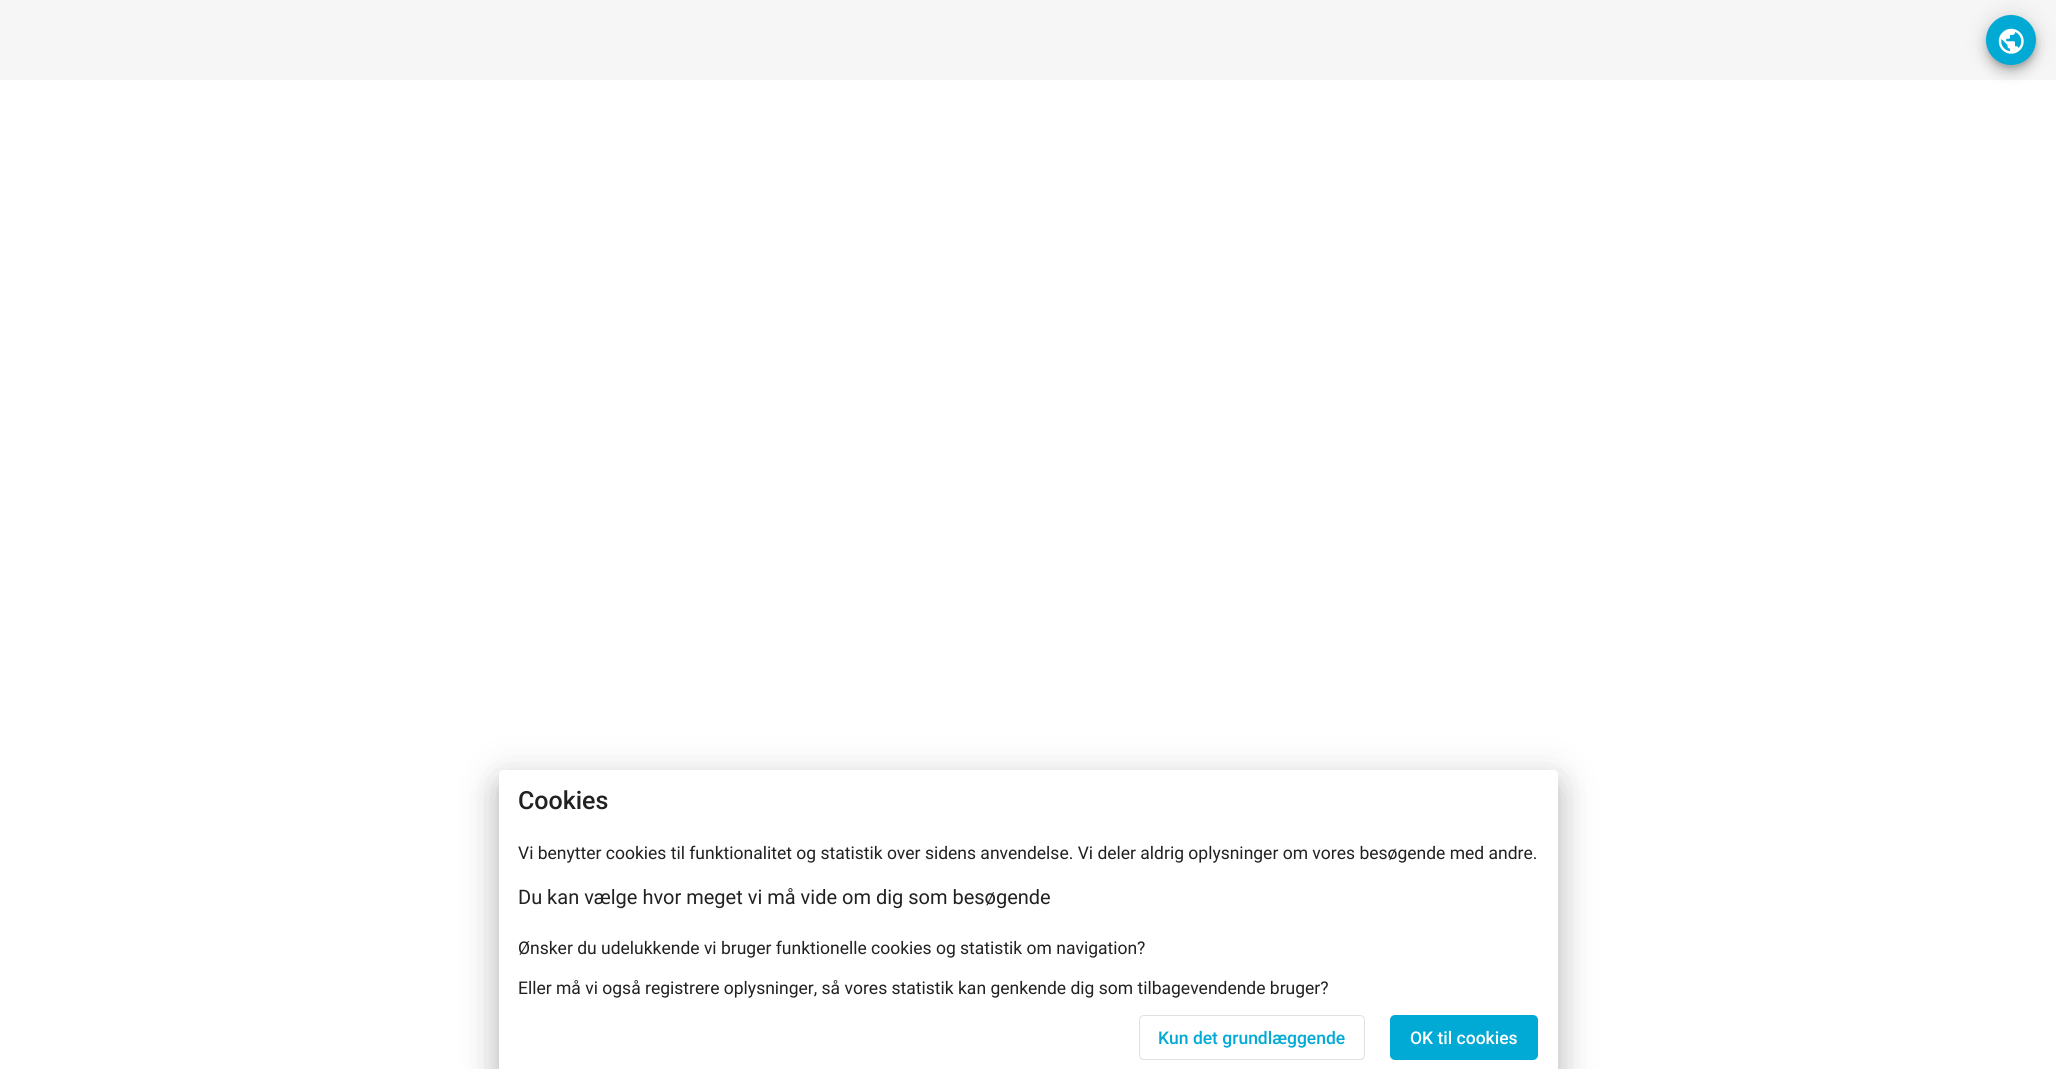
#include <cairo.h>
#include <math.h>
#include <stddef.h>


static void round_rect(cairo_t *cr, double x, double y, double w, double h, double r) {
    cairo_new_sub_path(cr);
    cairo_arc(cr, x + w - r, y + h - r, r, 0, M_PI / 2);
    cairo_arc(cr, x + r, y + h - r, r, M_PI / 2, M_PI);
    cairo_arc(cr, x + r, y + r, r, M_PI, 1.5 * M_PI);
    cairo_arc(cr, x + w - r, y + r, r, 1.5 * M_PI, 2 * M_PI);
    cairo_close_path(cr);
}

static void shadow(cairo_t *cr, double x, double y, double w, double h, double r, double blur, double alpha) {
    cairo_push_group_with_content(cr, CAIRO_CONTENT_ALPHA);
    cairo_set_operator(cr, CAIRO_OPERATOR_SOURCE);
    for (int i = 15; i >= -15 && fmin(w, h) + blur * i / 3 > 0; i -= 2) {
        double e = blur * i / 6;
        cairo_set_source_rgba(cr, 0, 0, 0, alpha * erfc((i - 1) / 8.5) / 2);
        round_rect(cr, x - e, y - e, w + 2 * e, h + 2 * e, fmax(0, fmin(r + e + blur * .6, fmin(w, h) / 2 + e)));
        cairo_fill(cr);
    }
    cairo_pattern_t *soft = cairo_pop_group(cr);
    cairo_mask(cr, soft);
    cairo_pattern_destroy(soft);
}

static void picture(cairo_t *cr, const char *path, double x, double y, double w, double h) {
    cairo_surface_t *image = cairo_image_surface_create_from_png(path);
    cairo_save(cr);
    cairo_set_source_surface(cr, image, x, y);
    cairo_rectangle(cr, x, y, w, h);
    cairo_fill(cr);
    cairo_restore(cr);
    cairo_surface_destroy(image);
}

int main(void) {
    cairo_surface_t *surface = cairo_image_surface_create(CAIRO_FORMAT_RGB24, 2056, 1069);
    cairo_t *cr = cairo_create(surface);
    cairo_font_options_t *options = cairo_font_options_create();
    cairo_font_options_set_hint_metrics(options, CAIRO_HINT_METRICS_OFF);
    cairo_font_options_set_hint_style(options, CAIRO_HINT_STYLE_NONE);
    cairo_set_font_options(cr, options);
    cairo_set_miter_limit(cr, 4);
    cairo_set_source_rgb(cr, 1, 1, 1);
    cairo_paint(cr);
    cairo_set_source_rgb(cr, 0.961, 0.961, 0.961);
    cairo_rectangle(cr, 0, 0, 2056, 80);
    cairo_fill(cr);
    cairo_set_source_rgb(cr, 0, 0, 0);
    shadow(cr, 1986, 16, 50, 50, 25, 11, 0.12);
    shadow(cr, 1986, 23, 50, 50, 25, 6, 0.14);
    shadow(cr, 1988, 20, 47, 48, 23.5, 3, 0.2);
    cairo_set_source_rgb(cr, 0, 0.667, 0.831);
    cairo_arc(cr, 2011, 40, 25, 0, 2 * M_PI);
    cairo_fill(cr);
    picture(cr, "img1.png", 1998, 28, 26, 26);
    cairo_set_source_rgb(cr, 0, 0, 0);
    shadow(cr, 493, 771, 1071, 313, 11, 19, 0.12);
    shadow(cr, 496, 788, 1064, 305, 8, 15, 0.14);
    shadow(cr, 505, 786, 1046, 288, 0, 6, 0.2);
    cairo_set_source_rgb(cr, 1, 1, 1);
    cairo_new_path(cr);
    cairo_move_to(cr, 504, 770);
    cairo_line_to(cr, 1553, 770);
    cairo_curve_to(cr, 1556, 770, 1558, 772, 1558, 775);
    cairo_line_to(cr, 1558, 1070);
    cairo_line_to(cr, 499, 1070);
    cairo_line_to(cr, 499, 775);
    cairo_curve_to(cr, 499, 772, 501, 770, 504, 770);
    cairo_close_path(cr);
    cairo_fill(cr);
    cairo_select_font_face(cr, "Roboto Medium", CAIRO_FONT_SLANT_NORMAL, CAIRO_FONT_WEIGHT_NORMAL);
    cairo_set_font_size(cr, 25);
    cairo_set_source_rgb(cr, 0.129, 0.129, 0.129);
    cairo_move_to(cr, 518, 809);
    cairo_show_text(cr, "Cookies");
    cairo_select_font_face(cr, "Roboto", CAIRO_FONT_SLANT_NORMAL, CAIRO_FONT_WEIGHT_NORMAL);
    cairo_set_font_size(cr, 17.5);
    cairo_move_to(cr, 518, 859);
    cairo_show_text(cr, "Vi benytter cookies til funktionalitet og statistik over sidens anvendelse. Vi deler aldrig oplysninger om vores besøgende med andre.");
    cairo_set_font_size(cr, 20);
    cairo_move_to(cr, 518, 904);
    cairo_show_text(cr, "Du kan vælge hvor meget vi må vide om dig som besøgende");
    cairo_set_font_size(cr, 17.5);
    cairo_move_to(cr, 518, 954);
    cairo_show_text(cr, "Ønsker du udelukkende vi bruger funktionelle cookies og statistik om navigation?");
    cairo_move_to(cr, 518, 994);
    cairo_show_text(cr, "Eller må vi også registrere oplysninger, så vores statistik kan genkende dig som tilbagevendende bruger?");
    round_rect(cr, 1139.5, 1015.5, 225, 44, 4.5);
    cairo_set_source_rgb(cr, 0.878, 0.878, 0.878);
    cairo_set_line_width(cr, 1);
    cairo_stroke(cr);
    cairo_select_font_face(cr, "Roboto Medium", CAIRO_FONT_SLANT_NORMAL, CAIRO_FONT_WEIGHT_NORMAL);
    cairo_set_source_rgb(cr, 0, 0.667, 0.831);
    cairo_move_to(cr, 1158, 1044);
    cairo_show_text(cr, "Kun det grundlæggende");
    round_rect(cr, 1390, 1015, 148, 45, 5);
    cairo_fill(cr);
    cairo_set_source_rgb(cr, 1, 1, 1);
    cairo_move_to(cr, 1410, 1044);
    cairo_show_text(cr, "OK til cookies");
    cairo_surface_write_to_png(surface, "page.png");
    cairo_font_options_destroy(options);
    cairo_destroy(cr);
    cairo_surface_destroy(surface);
    return 0;
}
